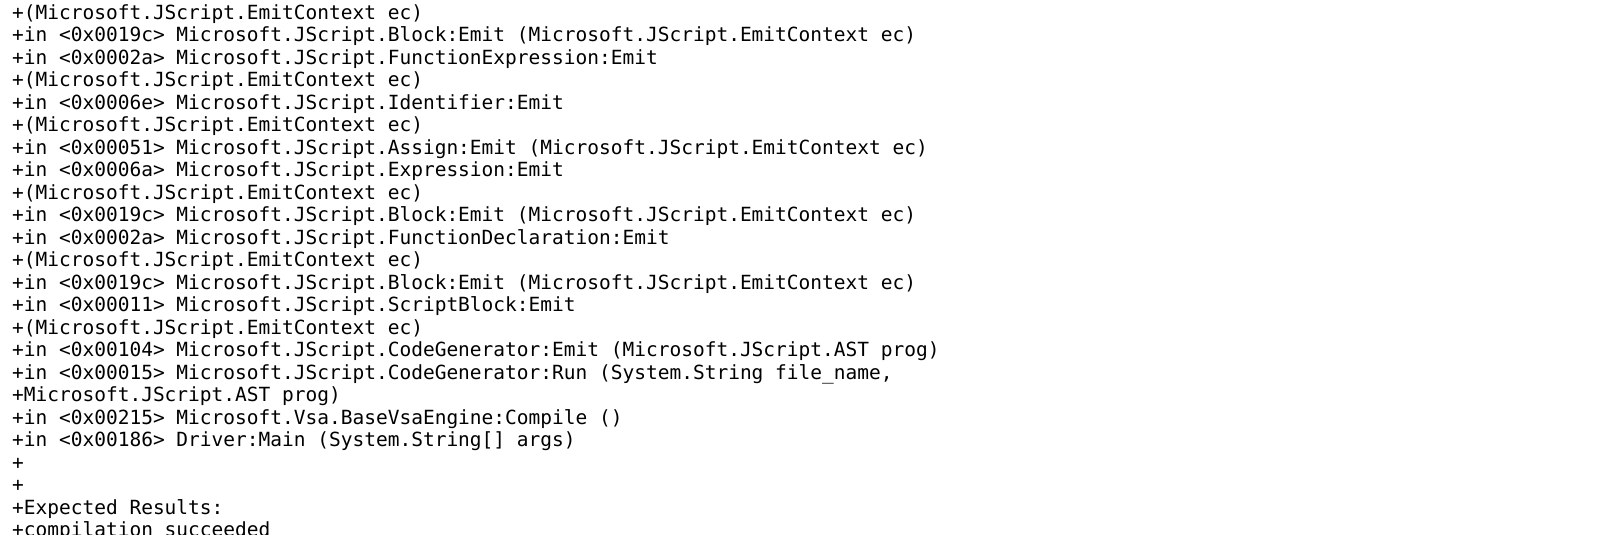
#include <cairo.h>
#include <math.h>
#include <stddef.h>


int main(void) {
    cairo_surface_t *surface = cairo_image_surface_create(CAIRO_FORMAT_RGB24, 1603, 535);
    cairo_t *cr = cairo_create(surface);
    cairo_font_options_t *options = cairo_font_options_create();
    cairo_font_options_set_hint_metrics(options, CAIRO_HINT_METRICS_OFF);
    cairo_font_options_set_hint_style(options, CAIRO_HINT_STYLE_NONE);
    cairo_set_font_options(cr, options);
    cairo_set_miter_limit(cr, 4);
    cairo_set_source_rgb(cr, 1, 1, 1);
    cairo_paint(cr);
    cairo_select_font_face(cr, "DejaVu Sans Mono", CAIRO_FONT_SLANT_NORMAL, CAIRO_FONT_WEIGHT_NORMAL);
    cairo_set_font_size(cr, 19.5);
    cairo_set_source_rgb(cr, 0, 0, 0);
    cairo_move_to(cr, 12, 19);
    cairo_show_text(cr, "+(Microsoft.JScript.EmitContext ec)");
    cairo_move_to(cr, 12, 41);
    cairo_show_text(cr, "+in <0x0019c> Microsoft.JScript.Block:Emit (Microsoft.JScript.EmitContext ec)");
    cairo_move_to(cr, 12, 64);
    cairo_show_text(cr, "+in <0x0002a> Microsoft.JScript.FunctionExpression:Emit");
    cairo_move_to(cr, 12, 86);
    cairo_show_text(cr, "+(Microsoft.JScript.EmitContext ec)");
    cairo_move_to(cr, 12, 109);
    cairo_show_text(cr, "+in <0x0006e> Microsoft.JScript.Identifier:Emit");
    cairo_move_to(cr, 12, 131);
    cairo_show_text(cr, "+(Microsoft.JScript.EmitContext ec)");
    cairo_move_to(cr, 12, 154);
    cairo_show_text(cr, "+in <0x00051> Microsoft.JScript.Assign:Emit (Microsoft.JScript.EmitContext ec)");
    cairo_move_to(cr, 12, 176);
    cairo_show_text(cr, "+in <0x0006a> Microsoft.JScript.Expression:Emit");
    cairo_move_to(cr, 12, 199);
    cairo_show_text(cr, "+(Microsoft.JScript.EmitContext ec)");
    cairo_move_to(cr, 12, 221);
    cairo_show_text(cr, "+in <0x0019c> Microsoft.JScript.Block:Emit (Microsoft.JScript.EmitContext ec)");
    cairo_move_to(cr, 12, 244);
    cairo_show_text(cr, "+in <0x0002a> Microsoft.JScript.FunctionDeclaration:Emit");
    cairo_move_to(cr, 12, 266);
    cairo_show_text(cr, "+(Microsoft.JScript.EmitContext ec)");
    cairo_move_to(cr, 12, 289);
    cairo_show_text(cr, "+in <0x0019c> Microsoft.JScript.Block:Emit (Microsoft.JScript.EmitContext ec)");
    cairo_move_to(cr, 12, 311);
    cairo_show_text(cr, "+in <0x00011> Microsoft.JScript.ScriptBlock:Emit");
    cairo_move_to(cr, 12, 334);
    cairo_show_text(cr, "+(Microsoft.JScript.EmitContext ec)");
    cairo_move_to(cr, 12, 356);
    cairo_show_text(cr, "+in <0x00104> Microsoft.JScript.CodeGenerator:Emit (Microsoft.JScript.AST prog)");
    cairo_move_to(cr, 12, 379);
    cairo_show_text(cr, "+in <0x00015> Microsoft.JScript.CodeGenerator:Run (System.String file_name,");
    cairo_move_to(cr, 12, 401);
    cairo_show_text(cr, "+Microsoft.JScript.AST prog)");
    cairo_move_to(cr, 12, 424);
    cairo_show_text(cr, "+in <0x00215> Microsoft.Vsa.BaseVsaEngine:Compile ()");
    cairo_move_to(cr, 12, 446);
    cairo_show_text(cr, "+in <0x00186> Driver:Main (System.String[] args)");
    cairo_move_to(cr, 12, 469);
    cairo_show_text(cr, "+");
    cairo_move_to(cr, 12, 491);
    cairo_show_text(cr, "+");
    cairo_move_to(cr, 12, 514);
    cairo_show_text(cr, "+Expected Results:");
    cairo_move_to(cr, 12, 536);
    cairo_show_text(cr, "+compilation succeeded");
    cairo_surface_write_to_png(surface, "page.png");
    cairo_font_options_destroy(options);
    cairo_destroy(cr);
    cairo_surface_destroy(surface);
    return 0;
}
